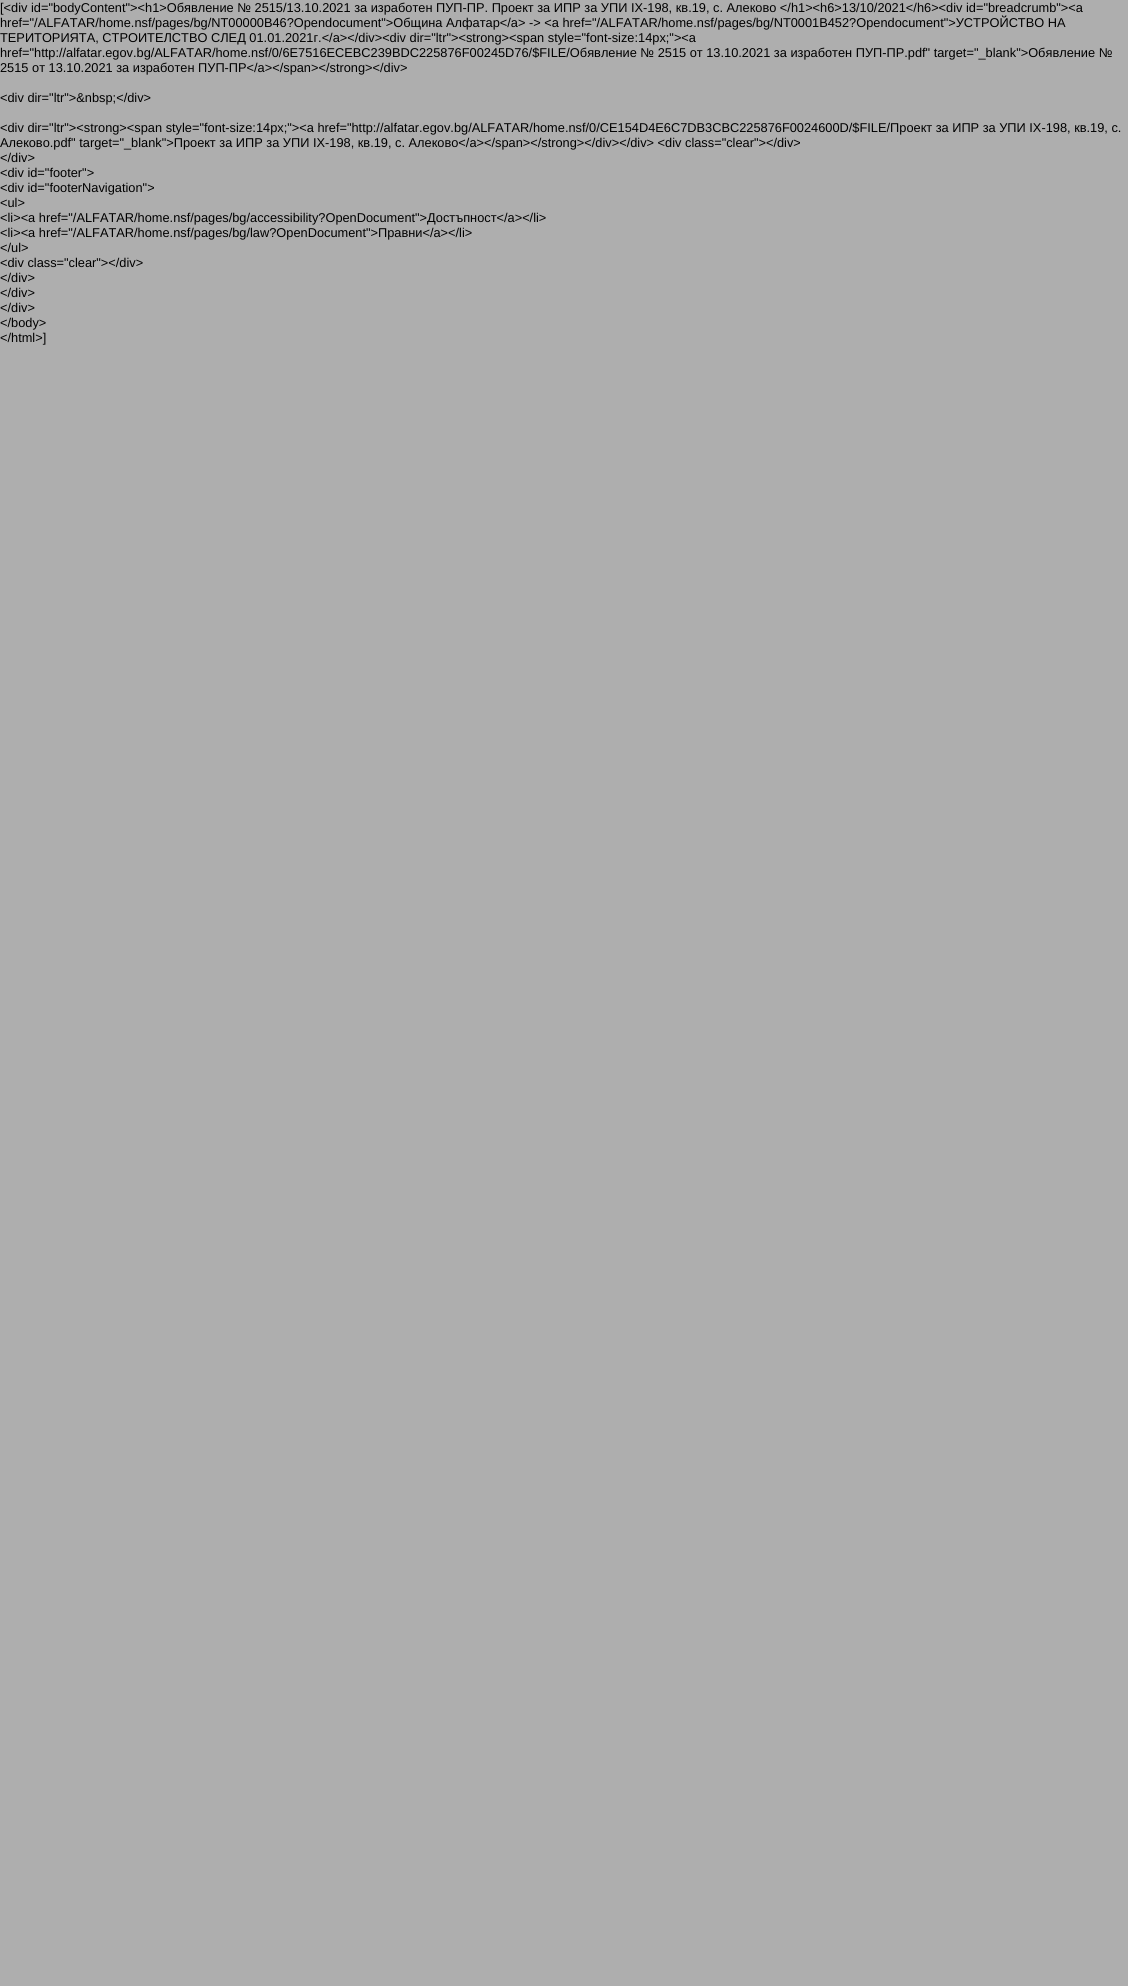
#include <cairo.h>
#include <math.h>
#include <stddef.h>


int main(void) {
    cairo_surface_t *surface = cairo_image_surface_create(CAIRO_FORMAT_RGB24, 1128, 1986);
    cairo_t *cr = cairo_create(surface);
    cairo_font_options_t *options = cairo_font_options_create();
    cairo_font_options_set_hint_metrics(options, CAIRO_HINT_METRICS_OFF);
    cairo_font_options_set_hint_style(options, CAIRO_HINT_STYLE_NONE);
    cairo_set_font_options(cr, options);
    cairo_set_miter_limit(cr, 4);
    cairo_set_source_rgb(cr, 0.682, 0.682, 0.682);
    cairo_paint(cr);
    cairo_select_font_face(cr, "Liberation Sans", CAIRO_FONT_SLANT_NORMAL, CAIRO_FONT_WEIGHT_NORMAL);
    cairo_set_font_size(cr, 12.8);
    cairo_set_source_rgb(cr, 0, 0, 0);
    cairo_move_to(cr, 0, 12);
    cairo_show_text(cr, "[<div id=\"bodyContent\"><h1>Обявление № 2515/13.10.2021 за изработен ПУП-ПР. Проект за ИПР за УПИ ІХ-198, кв.19, с. Алеково </h1><h6>13/10/2021</h6><div id=\"breadcrumb\"><a");
    cairo_move_to(cr, 0, 27);
    cairo_show_text(cr, "href=\"/ALFATAR/home.nsf/pages/bg/NT00000B46?Opendocument\">Община Алфатар</a> -> <a href=\"/ALFATAR/home.nsf/pages/bg/NT0001B452?Opendocument\">УСТРОЙСТВО НА");
    cairo_move_to(cr, 0, 42);
    cairo_show_text(cr, "ТЕРИТОРИЯТА, СТРОИТЕЛСТВО СЛЕД 01.01.2021г.</a></div><div dir=\"ltr\"><strong><span style=\"font-size:14px;\"><a");
    cairo_move_to(cr, 0, 57);
    cairo_show_text(cr, "href=\"http://alfatar.egov.bg/ALFATAR/home.nsf/0/6E7516ECEBC239BDC225876F00245D76/$FILE/Обявление № 2515 от 13.10.2021 за изработен ПУП-ПР.pdf\" target=\"_blank\">Обявление №");
    cairo_move_to(cr, 0, 72);
    cairo_show_text(cr, "2515 от 13.10.2021 за изработен ПУП-ПР</a></span></strong></div>");
    cairo_move_to(cr, 0, 102);
    cairo_show_text(cr, "<div dir=\"ltr\">&nbsp;</div>");
    cairo_move_to(cr, 0, 132);
    cairo_show_text(cr, "<div dir=\"ltr\"><strong><span style=\"font-size:14px;\"><a href=\"http://alfatar.egov.bg/ALFATAR/home.nsf/0/CE154D4E6C7DB3CBC225876F0024600D/$FILE/Проект за ИПР за УПИ ІХ-198, кв.19, с.");
    cairo_move_to(cr, 0, 147);
    cairo_show_text(cr, "Алеково.pdf\" target=\"_blank\">Проект за ИПР за УПИ ІХ-198, кв.19, с. Алеково</a></span></strong></div></div> <div class=\"clear\"></div>");
    cairo_move_to(cr, 0, 162);
    cairo_show_text(cr, "</div>");
    cairo_move_to(cr, 0, 177);
    cairo_show_text(cr, "<div id=\"footer\">");
    cairo_move_to(cr, 0, 192);
    cairo_show_text(cr, "<div id=\"footerNavigation\">");
    cairo_move_to(cr, 0, 207);
    cairo_show_text(cr, "<ul>");
    cairo_move_to(cr, 0, 222);
    cairo_show_text(cr, "<li><a href=\"/ALFATAR/home.nsf/pages/bg/accessibility?OpenDocument\">Достъпност</a></li>");
    cairo_move_to(cr, 0, 237);
    cairo_show_text(cr, "<li><a href=\"/ALFATAR/home.nsf/pages/bg/law?OpenDocument\">Правни</a></li>");
    cairo_move_to(cr, 0, 252);
    cairo_show_text(cr, "</ul>");
    cairo_move_to(cr, 0, 267);
    cairo_show_text(cr, "<div class=\"clear\"></div>");
    cairo_move_to(cr, 0, 282);
    cairo_show_text(cr, "</div>");
    cairo_move_to(cr, 0, 297);
    cairo_show_text(cr, "</div>");
    cairo_move_to(cr, 0, 312);
    cairo_show_text(cr, "</div>");
    cairo_move_to(cr, 0, 327);
    cairo_show_text(cr, "</body>");
    cairo_move_to(cr, 0, 342);
    cairo_show_text(cr, "</html>]");
    cairo_surface_write_to_png(surface, "page.png");
    cairo_font_options_destroy(options);
    cairo_destroy(cr);
    cairo_surface_destroy(surface);
    return 0;
}
